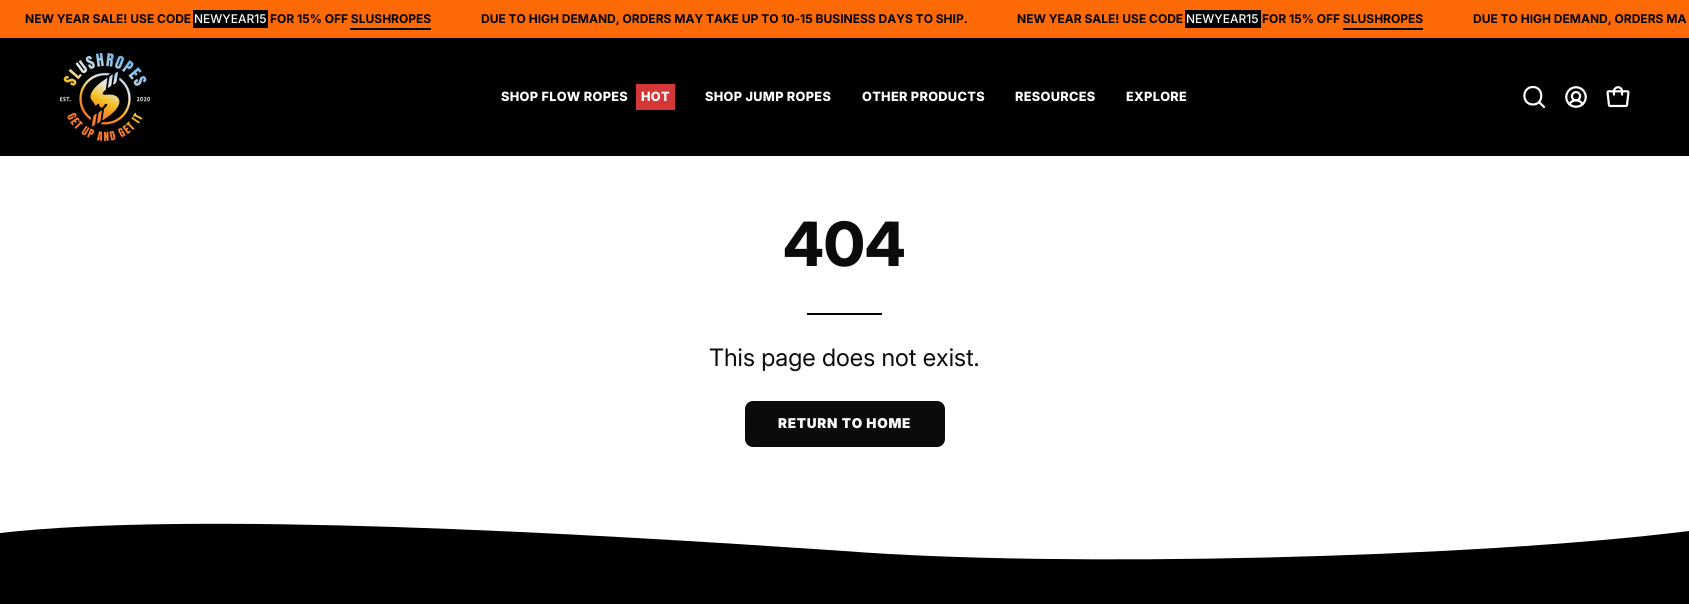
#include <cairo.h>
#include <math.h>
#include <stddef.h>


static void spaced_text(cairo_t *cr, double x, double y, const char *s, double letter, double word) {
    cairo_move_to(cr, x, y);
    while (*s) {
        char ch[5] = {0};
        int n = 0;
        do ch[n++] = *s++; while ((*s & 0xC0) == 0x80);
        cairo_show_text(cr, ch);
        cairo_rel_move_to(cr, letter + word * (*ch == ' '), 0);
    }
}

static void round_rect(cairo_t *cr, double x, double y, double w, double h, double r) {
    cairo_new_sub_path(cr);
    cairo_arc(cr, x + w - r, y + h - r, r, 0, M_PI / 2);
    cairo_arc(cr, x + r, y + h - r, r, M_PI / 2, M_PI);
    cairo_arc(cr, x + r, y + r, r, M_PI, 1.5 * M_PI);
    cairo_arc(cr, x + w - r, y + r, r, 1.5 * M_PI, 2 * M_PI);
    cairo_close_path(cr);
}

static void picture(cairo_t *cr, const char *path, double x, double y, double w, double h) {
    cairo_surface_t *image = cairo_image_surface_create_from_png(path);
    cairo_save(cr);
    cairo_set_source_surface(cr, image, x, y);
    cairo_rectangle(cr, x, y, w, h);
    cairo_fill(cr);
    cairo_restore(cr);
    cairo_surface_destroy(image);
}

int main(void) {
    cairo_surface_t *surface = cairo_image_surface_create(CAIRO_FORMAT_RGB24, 1689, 604);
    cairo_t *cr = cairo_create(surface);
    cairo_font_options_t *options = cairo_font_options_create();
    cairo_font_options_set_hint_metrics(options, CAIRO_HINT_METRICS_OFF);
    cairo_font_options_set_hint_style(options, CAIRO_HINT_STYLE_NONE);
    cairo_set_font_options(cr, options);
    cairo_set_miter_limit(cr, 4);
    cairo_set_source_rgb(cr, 1, 1, 1);
    cairo_paint(cr);
    cairo_set_source_rgb(cr, 0.992, 0.412, 0.02);
    cairo_rectangle(cr, 0, 0, 1689, 38);
    cairo_fill(cr);
    cairo_select_font_face(cr, "Inter", CAIRO_FONT_SLANT_NORMAL, CAIRO_FONT_WEIGHT_BOLD);
    cairo_set_font_size(cr, 12);
    cairo_set_source_rgb(cr, 0, 0, 0);
    cairo_move_to(cr, 25, 23);
    cairo_show_text(cr, "NEW YEAR SALE! USE CODE");
    cairo_rectangle(cr, 193, 10, 75, 18);
    cairo_fill(cr);
    cairo_select_font_face(cr, "Inter Medium", CAIRO_FONT_SLANT_NORMAL, CAIRO_FONT_WEIGHT_NORMAL);
    cairo_set_source_rgb(cr, 1, 1, 1);
    cairo_move_to(cr, 194, 23);
    cairo_show_text(cr, "NEWYEAR15");
    cairo_select_font_face(cr, "Inter", CAIRO_FONT_SLANT_NORMAL, CAIRO_FONT_WEIGHT_BOLD);
    cairo_set_source_rgb(cr, 0, 0, 0);
    cairo_move_to(cr, 270, 23);
    cairo_show_text(cr, "FOR 15% OFF SLUSHROPES");
    cairo_rectangle(cr, 350, 28, 81, 2);
    cairo_fill(cr);
    cairo_move_to(cr, 481, 23);
    cairo_show_text(cr, "DUE TO HIGH DEMAND, ORDERS MAY TAKE UP TO 10-15 BUSINESS DAYS TO SHIP.");
    cairo_move_to(cr, 1017, 23);
    cairo_show_text(cr, "NEW YEAR SALE! USE CODE");
    cairo_rectangle(cr, 1185, 10, 76, 18);
    cairo_fill(cr);
    cairo_select_font_face(cr, "Inter Medium", CAIRO_FONT_SLANT_NORMAL, CAIRO_FONT_WEIGHT_NORMAL);
    cairo_set_source_rgb(cr, 1, 1, 1);
    cairo_move_to(cr, 1186, 23);
    cairo_show_text(cr, "NEWYEAR15");
    cairo_select_font_face(cr, "Inter", CAIRO_FONT_SLANT_NORMAL, CAIRO_FONT_WEIGHT_BOLD);
    cairo_set_source_rgb(cr, 0, 0, 0);
    cairo_move_to(cr, 1262, 23);
    cairo_show_text(cr, "FOR 15% OFF SLUSHROPES");
    cairo_rectangle(cr, 1343, 28, 80, 2);
    cairo_fill(cr);
    cairo_move_to(cr, 1473, 23);
    cairo_show_text(cr, "DUE TO HIGH DEMAND, ORDERS MA");
    cairo_rectangle(cr, 0, 38, 1689, 118);
    cairo_fill(cr);
    picture(cr, "img1.png", 60, 53, 90, 88);
    cairo_select_font_face(cr, "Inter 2 ExtraBold", CAIRO_FONT_SLANT_NORMAL, CAIRO_FONT_WEIGHT_NORMAL);
    cairo_set_font_size(cr, 12.75);
    cairo_set_source_rgb(cr, 1, 1, 1);
    spaced_text(cr, 501, 101, "SHOP FLOW ROPES", 0.3, 0);
    cairo_set_source_rgb(cr, 0.831, 0.216, 0.216);
    cairo_rectangle(cr, 636, 84, 39, 26);
    cairo_fill(cr);
    cairo_set_source_rgb(cr, 1, 1, 1);
    spaced_text(cr, 641, 101, "HOT", 0.3, 0);
    spaced_text(cr, 705, 101, "SHOP JUMP ROPES", 0.3, 0);
    spaced_text(cr, 862, 101, "OTHER PRODUCTS", 0.3, 0);
    spaced_text(cr, 1015, 101, "RESOURCES", 0.3, 0);
    spaced_text(cr, 1126, 101, "EXPLORE", 0.3, 0);
    cairo_new_path(cr);
    cairo_move_to(cr, 1533, 104.5);
    cairo_curve_to(cr, 1544, 104.5, 1544, 87, 1533, 87);
    cairo_curve_to(cr, 1521.5, 87, 1521.5, 104.5, 1533, 104.5);
    cairo_close_path(cr);
    cairo_move_to(cr, 1539, 102);
    cairo_line_to(cr, 1544, 107);
    cairo_set_line_width(cr, 2.2);
    cairo_set_line_cap(cr, CAIRO_LINE_CAP_ROUND);
    cairo_set_line_join(cr, CAIRO_LINE_JOIN_ROUND);
    cairo_stroke(cr);
    picture(cr, "img2.png", 1565, 86, 22, 22);
    picture(cr, "img3.png", 1606, 86, 24, 22);
    cairo_select_font_face(cr, "Inter ExtraBold", CAIRO_FONT_SLANT_NORMAL, CAIRO_FONT_WEIGHT_NORMAL);
    cairo_set_font_size(cr, 61);
    cairo_set_source_rgb(cr, 0.043, 0.043, 0.043);
    cairo_move_to(cr, 783, 266);
    cairo_show_text(cr, "404");
    cairo_set_source_rgb(cr, 0, 0, 0);
    cairo_rectangle(cr, 807, 313, 75, 2);
    cairo_fill(cr);
    cairo_select_font_face(cr, "Inter", CAIRO_FONT_SLANT_NORMAL, CAIRO_FONT_WEIGHT_NORMAL);
    cairo_set_font_size(cr, 24);
    cairo_set_source_rgb(cr, 0.043, 0.043, 0.043);
    cairo_move_to(cr, 709, 366);
    cairo_show_text(cr, "This page does not exist.");
    round_rect(cr, 745, 401, 200, 46, 8);
    cairo_fill(cr);
    cairo_select_font_face(cr, "Inter Black", CAIRO_FONT_SLANT_NORMAL, CAIRO_FONT_WEIGHT_NORMAL);
    cairo_set_font_size(cr, 13.5);
    cairo_set_source_rgb(cr, 1, 1, 1);
    spaced_text(cr, 778, 428, "RETURN TO HOME", 0.75, 0);
    cairo_set_source_rgb(cr, 0, 0, 0);
    cairo_rectangle(cr, 0, 580, 1689, 24);
    cairo_fill(cr);
    cairo_save(cr);
    cairo_rectangle(cr, 0, 523, 1689, 57);
    cairo_clip(cr);
    cairo_new_path(cr);
    cairo_move_to(cr, 0, 533);
    cairo_curve_to(cr, 193, 511, 579, 533, 844, 551);
    cairo_curve_to(cr, 1062, 568, 1472, 558, 1689, 531);
    cairo_line_to(cr, 1689, 581);
    cairo_line_to(cr, 0, 581);
    cairo_fill(cr);
    cairo_restore(cr);
    cairo_surface_write_to_png(surface, "page.png");
    cairo_font_options_destroy(options);
    cairo_destroy(cr);
    cairo_surface_destroy(surface);
    return 0;
}
